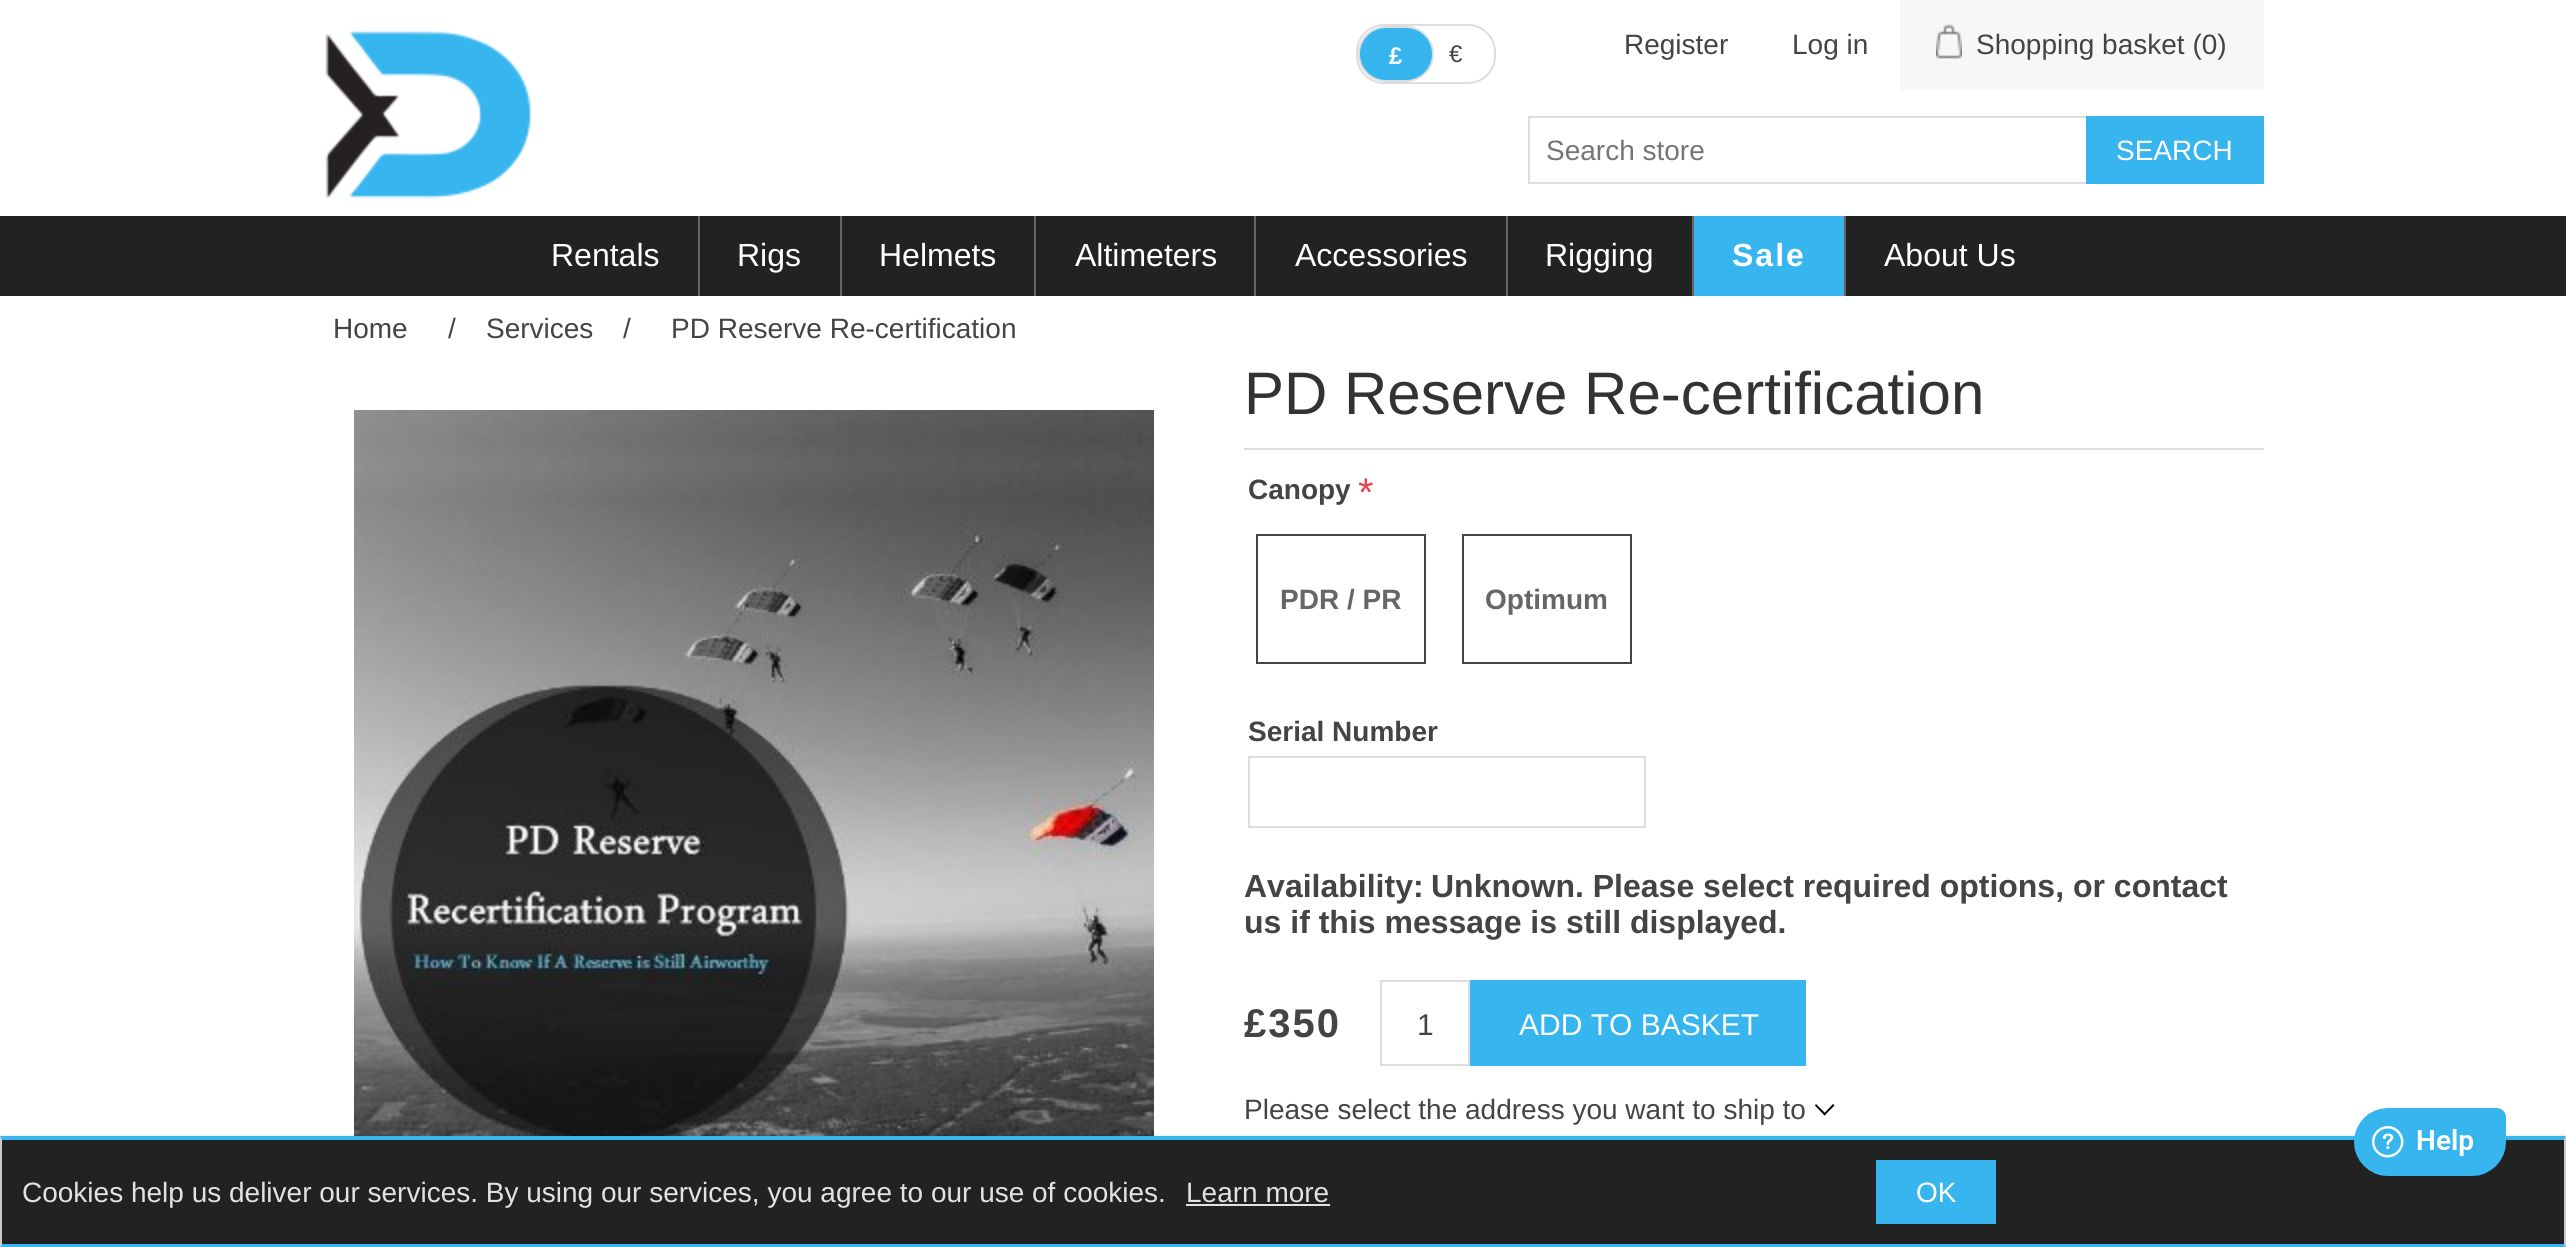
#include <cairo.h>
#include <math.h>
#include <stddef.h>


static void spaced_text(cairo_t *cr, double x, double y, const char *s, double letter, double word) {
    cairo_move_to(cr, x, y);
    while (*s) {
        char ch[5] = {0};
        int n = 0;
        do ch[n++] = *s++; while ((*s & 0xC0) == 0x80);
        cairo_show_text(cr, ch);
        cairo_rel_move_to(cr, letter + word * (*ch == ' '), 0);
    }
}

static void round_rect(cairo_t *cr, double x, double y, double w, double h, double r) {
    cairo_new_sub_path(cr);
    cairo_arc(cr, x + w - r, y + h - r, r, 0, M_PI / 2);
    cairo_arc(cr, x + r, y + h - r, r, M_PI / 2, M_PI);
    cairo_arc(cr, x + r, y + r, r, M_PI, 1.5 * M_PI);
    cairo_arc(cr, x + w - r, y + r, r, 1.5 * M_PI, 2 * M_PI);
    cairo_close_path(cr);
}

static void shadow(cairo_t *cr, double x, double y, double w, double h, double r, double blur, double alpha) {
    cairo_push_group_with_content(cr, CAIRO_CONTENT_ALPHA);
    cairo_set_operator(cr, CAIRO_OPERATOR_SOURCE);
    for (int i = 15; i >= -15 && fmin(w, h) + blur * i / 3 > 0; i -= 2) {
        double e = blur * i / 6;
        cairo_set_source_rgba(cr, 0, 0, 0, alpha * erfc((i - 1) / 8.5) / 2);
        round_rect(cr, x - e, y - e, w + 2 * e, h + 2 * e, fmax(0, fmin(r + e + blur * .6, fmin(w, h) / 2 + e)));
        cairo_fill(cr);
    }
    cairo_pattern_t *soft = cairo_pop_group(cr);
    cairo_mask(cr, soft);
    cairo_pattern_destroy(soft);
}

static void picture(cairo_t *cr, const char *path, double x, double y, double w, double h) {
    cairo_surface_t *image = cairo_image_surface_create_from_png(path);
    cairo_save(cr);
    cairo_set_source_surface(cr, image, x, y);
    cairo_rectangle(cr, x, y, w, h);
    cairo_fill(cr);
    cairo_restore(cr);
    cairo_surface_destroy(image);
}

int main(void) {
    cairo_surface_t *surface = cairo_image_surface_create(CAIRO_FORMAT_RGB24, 2566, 1247);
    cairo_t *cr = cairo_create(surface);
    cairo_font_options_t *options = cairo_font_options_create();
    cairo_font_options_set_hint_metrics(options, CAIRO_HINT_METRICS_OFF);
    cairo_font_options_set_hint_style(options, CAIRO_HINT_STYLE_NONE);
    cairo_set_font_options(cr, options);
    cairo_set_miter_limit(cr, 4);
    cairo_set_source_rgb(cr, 1, 1, 1);
    cairo_paint(cr);
    round_rect(cr, 1357, 25, 138, 58, 27);
    cairo_set_source_rgb(cr, 0.867, 0.867, 0.867);
    cairo_stroke(cr);
    cairo_set_source_rgb(cr, 0.212, 0.71, 0.933);
    round_rect(cr, 1359, 27, 74, 54, 27);
    cairo_fill_preserve(cr);
    cairo_set_source_rgb(cr, 0.867, 0.867, 0.867);
    cairo_stroke(cr);
    cairo_select_font_face(cr, "Liberation Sans", CAIRO_FONT_SLANT_NORMAL, CAIRO_FONT_WEIGHT_BOLD);
    cairo_set_font_size(cr, 24);
    cairo_set_source_rgb(cr, 1, 1, 1);
    cairo_move_to(cr, 1389, 64);
    cairo_show_text(cr, "£");
    cairo_select_font_face(cr, "Liberation Sans", CAIRO_FONT_SLANT_NORMAL, CAIRO_FONT_WEIGHT_NORMAL);
    cairo_set_source_rgb(cr, 0.267, 0.267, 0.267);
    cairo_move_to(cr, 1449, 62);
    cairo_show_text(cr, "€");
    cairo_set_font_size(cr, 28);
    cairo_move_to(cr, 1624, 54);
    cairo_show_text(cr, "Register");
    cairo_move_to(cr, 1792, 54);
    cairo_show_text(cr, "Log in");
    cairo_set_source_rgb(cr, 0.965, 0.965, 0.965);
    cairo_rectangle(cr, 1900, 0, 364, 90);
    cairo_fill(cr);
    picture(cr, "img1.png", 1936, 24, 26, 35);
    cairo_set_source_rgb(cr, 0.267, 0.267, 0.267);
    cairo_move_to(cr, 1976, 54);
    cairo_show_text(cr, "Shopping basket (0)");
    picture(cr, "img2.png", 325, 31, 207, 168);
    cairo_rectangle(cr, 1529, 117, 558, 66);
    cairo_set_source_rgb(cr, 0.867, 0.867, 0.867);
    cairo_stroke(cr);
    cairo_set_source_rgb(cr, 0.459, 0.459, 0.459);
    cairo_move_to(cr, 1546, 160);
    cairo_show_text(cr, "Search store");
    cairo_set_source_rgb(cr, 0.212, 0.71, 0.933);
    cairo_rectangle(cr, 2086, 116, 178, 68);
    cairo_fill(cr);
    cairo_set_source_rgb(cr, 1, 1, 1);
    cairo_move_to(cr, 2116, 160);
    cairo_show_text(cr, "SEARCH");
    cairo_set_source_rgb(cr, 0.133, 0.133, 0.133);
    cairo_rectangle(cr, 0, 216, 2566, 80);
    cairo_fill(cr);
    cairo_set_font_size(cr, 32);
    cairo_set_source_rgb(cr, 1, 1, 1);
    cairo_move_to(cr, 551, 266);
    cairo_show_text(cr, "Rentals");
    cairo_set_source_rgb(cr, 0.4, 0.4, 0.4);
    cairo_rectangle(cr, 698, 216, 2, 80);
    cairo_fill(cr);
    cairo_set_source_rgb(cr, 1, 1, 1);
    cairo_move_to(cr, 737, 266);
    cairo_show_text(cr, "Rigs");
    cairo_set_source_rgb(cr, 0.4, 0.4, 0.4);
    cairo_rectangle(cr, 840, 216, 2, 80);
    cairo_fill(cr);
    cairo_set_source_rgb(cr, 1, 1, 1);
    cairo_move_to(cr, 879, 266);
    cairo_show_text(cr, "Helmets");
    cairo_set_source_rgb(cr, 0.4, 0.4, 0.4);
    cairo_rectangle(cr, 1034, 216, 2, 80);
    cairo_fill(cr);
    cairo_set_source_rgb(cr, 1, 1, 1);
    cairo_move_to(cr, 1075, 266);
    cairo_show_text(cr, "Altimeters");
    cairo_set_source_rgb(cr, 0.4, 0.4, 0.4);
    cairo_rectangle(cr, 1254, 216, 2, 80);
    cairo_fill(cr);
    cairo_set_source_rgb(cr, 1, 1, 1);
    cairo_move_to(cr, 1295, 266);
    cairo_show_text(cr, "Accessories");
    cairo_set_source_rgb(cr, 0.4, 0.4, 0.4);
    cairo_rectangle(cr, 1506, 216, 2, 80);
    cairo_fill(cr);
    cairo_set_source_rgb(cr, 1, 1, 1);
    cairo_move_to(cr, 1545, 266);
    cairo_show_text(cr, "Rigging");
    cairo_set_source_rgb(cr, 0.212, 0.71, 0.933);
    cairo_rectangle(cr, 1694, 216, 150, 80);
    cairo_fill(cr);
    cairo_set_source_rgb(cr, 0.4, 0.4, 0.4);
    cairo_rectangle(cr, 1692, 216, 2, 80);
    cairo_fill(cr);
    cairo_select_font_face(cr, "Liberation Sans", CAIRO_FONT_SLANT_NORMAL, CAIRO_FONT_WEIGHT_BOLD);
    cairo_set_source_rgb(cr, 1, 1, 1);
    spaced_text(cr, 1732, 266, "Sale", 2, 0);
    cairo_set_source_rgb(cr, 0.4, 0.4, 0.4);
    cairo_rectangle(cr, 1844, 216, 2, 80);
    cairo_fill(cr);
    cairo_select_font_face(cr, "Liberation Sans", CAIRO_FONT_SLANT_NORMAL, CAIRO_FONT_WEIGHT_NORMAL);
    cairo_set_source_rgb(cr, 1, 1, 1);
    cairo_move_to(cr, 1884, 266);
    cairo_show_text(cr, "About Us");
    cairo_set_font_size(cr, 28);
    cairo_set_source_rgb(cr, 0.267, 0.267, 0.267);
    cairo_move_to(cr, 333, 338);
    cairo_show_text(cr, "Home");
    cairo_move_to(cr, 448, 338);
    cairo_show_text(cr, "/");
    cairo_move_to(cr, 486, 338);
    cairo_show_text(cr, "Services");
    cairo_move_to(cr, 623, 338);
    cairo_show_text(cr, "/");
    cairo_move_to(cr, 671, 338);
    cairo_show_text(cr, "PD Reserve Re-certification");
    picture(cr, "img3.png", 354, 410, 800, 726);
    cairo_set_source_rgb(cr, 0.867, 0.867, 0.867);
    cairo_rectangle(cr, 1244, 448, 1020, 2);
    cairo_fill(cr);
    cairo_set_font_size(cr, 60);
    cairo_set_source_rgb(cr, 0.2, 0.2, 0.2);
    cairo_move_to(cr, 1244, 414);
    cairo_show_text(cr, "PD Reserve Re-certification");
    cairo_select_font_face(cr, "Liberation Sans", CAIRO_FONT_SLANT_NORMAL, CAIRO_FONT_WEIGHT_BOLD);
    cairo_set_font_size(cr, 28);
    cairo_set_source_rgb(cr, 0.267, 0.267, 0.267);
    cairo_move_to(cr, 1248, 499);
    cairo_show_text(cr, "Canopy");
    cairo_select_font_face(cr, "Liberation Sans", CAIRO_FONT_SLANT_NORMAL, CAIRO_FONT_WEIGHT_NORMAL);
    cairo_set_font_size(cr, 40);
    cairo_set_source_rgb(cr, 0.894, 0.263, 0.294);
    cairo_move_to(cr, 1358, 506);
    cairo_show_text(cr, "*");
    cairo_rectangle(cr, 1257, 535, 168, 128);
    cairo_set_source_rgb(cr, 0.267, 0.267, 0.267);
    cairo_stroke(cr);
    cairo_select_font_face(cr, "Liberation Sans", CAIRO_FONT_SLANT_NORMAL, CAIRO_FONT_WEIGHT_BOLD);
    cairo_set_font_size(cr, 28);
    cairo_set_source_rgb(cr, 0.4, 0.4, 0.4);
    cairo_move_to(cr, 1280, 609);
    cairo_show_text(cr, "PDR / PR");
    cairo_rectangle(cr, 1463, 535, 168, 128);
    cairo_set_source_rgb(cr, 0.267, 0.267, 0.267);
    cairo_stroke(cr);
    cairo_set_source_rgb(cr, 0.4, 0.4, 0.4);
    cairo_move_to(cr, 1485, 609);
    cairo_show_text(cr, "Optimum");
    cairo_set_source_rgb(cr, 0.267, 0.267, 0.267);
    cairo_move_to(cr, 1248, 741);
    cairo_show_text(cr, "Serial Number");
    cairo_rectangle(cr, 1249, 757, 396, 70);
    cairo_set_source_rgb(cr, 0.867, 0.867, 0.867);
    cairo_stroke(cr);
    cairo_set_font_size(cr, 32);
    cairo_set_source_rgb(cr, 0.267, 0.267, 0.267);
    cairo_move_to(cr, 1244, 897);
    cairo_show_text(cr, "Availability:");
    cairo_move_to(cr, 1431, 897);
    cairo_show_text(cr, "Unknown. Please select required options, or contact");
    cairo_move_to(cr, 1244, 933);
    cairo_show_text(cr, "us if this message is still displayed.");
    cairo_set_font_size(cr, 40);
    spaced_text(cr, 1244, 1037, "£350", 2, 0);
    cairo_rectangle(cr, 1381, 981, 88, 84);
    cairo_set_source_rgb(cr, 0.867, 0.867, 0.867);
    cairo_stroke(cr);
    cairo_select_font_face(cr, "Liberation Sans", CAIRO_FONT_SLANT_NORMAL, CAIRO_FONT_WEIGHT_NORMAL);
    cairo_set_font_size(cr, 30);
    cairo_set_source_rgb(cr, 0.267, 0.267, 0.267);
    cairo_move_to(cr, 1417, 1035);
    cairo_show_text(cr, "1");
    cairo_set_source_rgb(cr, 0.212, 0.71, 0.933);
    cairo_rectangle(cr, 1470, 980, 336, 86);
    cairo_fill(cr);
    cairo_set_source_rgb(cr, 1, 1, 1);
    cairo_move_to(cr, 1519, 1035);
    cairo_show_text(cr, "ADD TO BASKET");
    cairo_set_font_size(cr, 28);
    cairo_set_source_rgb(cr, 0.267, 0.267, 0.267);
    cairo_move_to(cr, 1244, 1119);
    cairo_show_text(cr, "Please select the address you want to ship to");
    cairo_set_source_rgb(cr, 0, 0, 0);
    cairo_new_path(cr);
    cairo_move_to(cr, 1833, 1104);
    cairo_line_to(cr, 1834.5, 1105.5);
    cairo_line_to(cr, 1824.5, 1115.5);
    cairo_line_to(cr, 1823.5, 1114);
    cairo_close_path(cr);
    cairo_fill(cr);
    cairo_new_path(cr);
    cairo_move_to(cr, 1816, 1104);
    cairo_line_to(cr, 1826, 1114);
    cairo_line_to(cr, 1824.5, 1115.5);
    cairo_line_to(cr, 1815, 1105.5);
    cairo_close_path(cr);
    cairo_fill(cr);
    cairo_set_source_rgb(cr, 0, 0, 0);
    shadow(cr, 0, 1136, 2566, 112, 0, 2, 0.15);
    cairo_set_source_rgb(cr, 0.133, 0.133, 0.133);
    cairo_rectangle(cr, 2, 1140, 2562, 104);
    cairo_fill(cr);
    cairo_set_source_rgb(cr, 0.212, 0.71, 0.933);
    cairo_new_path(cr);
    cairo_move_to(cr, 0, 1136);
    cairo_line_to(cr, 2566, 1136);
    cairo_line_to(cr, 2564, 1140);
    cairo_line_to(cr, 2, 1140);
    cairo_close_path(cr);
    cairo_fill(cr);
    picture(cr, "img4.png", 2354, 1108, 152, 68);
    cairo_set_source_rgb(cr, 0.8, 0.8, 0.8);
    cairo_new_path(cr);
    cairo_move_to(cr, 2566, 1136);
    cairo_line_to(cr, 2566, 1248);
    cairo_line_to(cr, 2564, 1244);
    cairo_line_to(cr, 2564, 1140);
    cairo_close_path(cr);
    cairo_fill(cr);
    cairo_set_source_rgb(cr, 0.212, 0.71, 0.933);
    cairo_new_path(cr);
    cairo_move_to(cr, 2566, 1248);
    cairo_line_to(cr, 0, 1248);
    cairo_line_to(cr, 2, 1244);
    cairo_line_to(cr, 2564, 1244);
    cairo_close_path(cr);
    cairo_fill(cr);
    cairo_set_source_rgb(cr, 0.8, 0.8, 0.8);
    cairo_new_path(cr);
    cairo_move_to(cr, 0, 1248);
    cairo_line_to(cr, 0, 1136);
    cairo_line_to(cr, 2, 1140);
    cairo_line_to(cr, 2, 1244);
    cairo_close_path(cr);
    cairo_fill(cr);
    cairo_set_source_rgb(cr, 0.886, 0.886, 0.886);
    cairo_move_to(cr, 22, 1202);
    cairo_show_text(cr, "Cookies help us deliver our services. By using our services, you agree to our use of cookies.");
    cairo_move_to(cr, 1186, 1202);
    cairo_show_text(cr, "Learn more");
    cairo_rectangle(cr, 1186, 1204, 144, 2);
    cairo_fill(cr);
    cairo_set_source_rgb(cr, 0.212, 0.71, 0.933);
    cairo_rectangle(cr, 1876, 1160, 120, 64);
    cairo_fill(cr);
    cairo_set_source_rgb(cr, 1, 1, 1);
    cairo_move_to(cr, 1916, 1202);
    cairo_show_text(cr, "OK");
    cairo_surface_write_to_png(surface, "page.png");
    cairo_font_options_destroy(options);
    cairo_destroy(cr);
    cairo_surface_destroy(surface);
    return 0;
}
